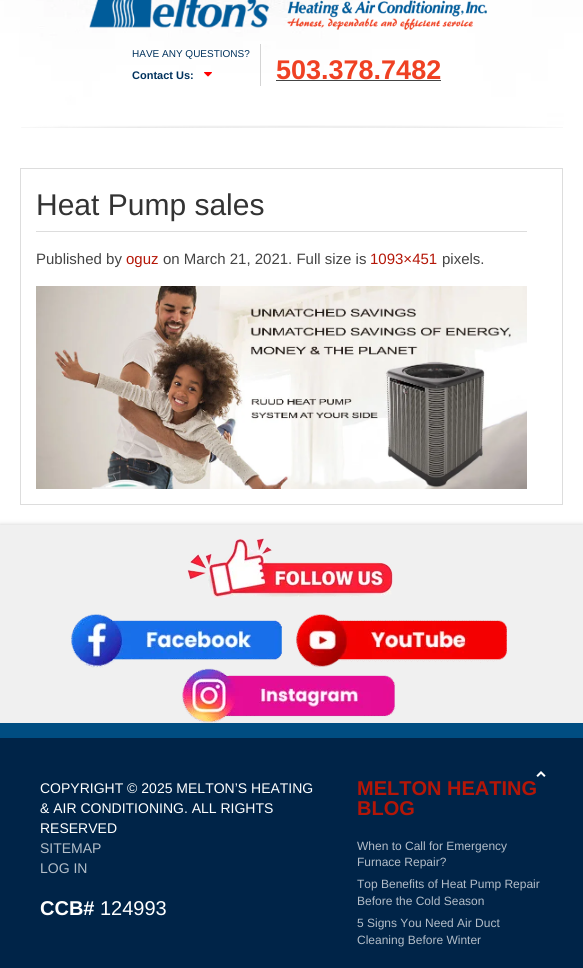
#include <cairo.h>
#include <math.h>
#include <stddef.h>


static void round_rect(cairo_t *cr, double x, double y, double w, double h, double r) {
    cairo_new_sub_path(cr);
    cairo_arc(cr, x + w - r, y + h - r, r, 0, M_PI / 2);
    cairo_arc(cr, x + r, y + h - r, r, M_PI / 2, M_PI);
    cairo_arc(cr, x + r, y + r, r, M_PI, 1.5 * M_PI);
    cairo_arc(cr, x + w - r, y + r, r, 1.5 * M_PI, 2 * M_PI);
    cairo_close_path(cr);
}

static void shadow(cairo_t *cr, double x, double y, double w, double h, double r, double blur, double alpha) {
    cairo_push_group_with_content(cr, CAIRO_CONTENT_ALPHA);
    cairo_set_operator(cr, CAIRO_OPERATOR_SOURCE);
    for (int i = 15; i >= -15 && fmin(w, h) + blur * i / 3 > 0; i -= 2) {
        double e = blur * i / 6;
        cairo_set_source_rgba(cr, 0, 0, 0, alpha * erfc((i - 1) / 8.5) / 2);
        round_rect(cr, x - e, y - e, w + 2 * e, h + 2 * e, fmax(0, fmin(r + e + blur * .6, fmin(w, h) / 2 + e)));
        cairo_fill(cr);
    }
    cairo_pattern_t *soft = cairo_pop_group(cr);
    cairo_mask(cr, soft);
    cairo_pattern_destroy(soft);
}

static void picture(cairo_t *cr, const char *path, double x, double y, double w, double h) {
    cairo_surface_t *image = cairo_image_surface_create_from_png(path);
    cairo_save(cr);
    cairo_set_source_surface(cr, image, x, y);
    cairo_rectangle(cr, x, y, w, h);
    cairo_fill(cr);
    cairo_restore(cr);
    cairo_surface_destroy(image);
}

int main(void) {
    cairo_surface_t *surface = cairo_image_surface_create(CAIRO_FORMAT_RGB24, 583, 968);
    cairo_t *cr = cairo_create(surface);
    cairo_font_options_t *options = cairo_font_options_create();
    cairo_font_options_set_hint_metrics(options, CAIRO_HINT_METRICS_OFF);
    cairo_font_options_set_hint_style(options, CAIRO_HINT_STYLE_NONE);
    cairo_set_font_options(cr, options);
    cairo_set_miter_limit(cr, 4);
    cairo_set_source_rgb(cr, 1, 1, 1);
    cairo_paint(cr);
    picture(cr, "img1.png", 0, 0, 583, 128);
    picture(cr, "img2.png", 89, 0, 398, 30);
    picture(cr, "img3.png", 21, 125, 542, 3);
    cairo_set_source_rgb(cr, 0.831, 0.831, 0.831);
    cairo_rectangle(cr, 260, 44, 1, 42);
    cairo_fill(cr);
    cairo_select_font_face(cr, "Liberation Sans", CAIRO_FONT_SLANT_NORMAL, CAIRO_FONT_WEIGHT_NORMAL);
    cairo_set_font_size(cr, 10);
    cairo_set_source_rgb(cr, 0, 0.196, 0.365);
    cairo_move_to(cr, 132, 57);
    cairo_show_text(cr, "HAVE ANY QUESTIONS?");
    cairo_select_font_face(cr, "Liberation Sans", CAIRO_FONT_SLANT_NORMAL, CAIRO_FONT_WEIGHT_BOLD);
    cairo_set_font_size(cr, 11);
    cairo_move_to(cr, 132, 79);
    cairo_show_text(cr, "Contact Us:");
    picture(cr, "img4.png", 204, 72, 8, 5);
    cairo_set_font_size(cr, 27);
    cairo_set_source_rgb(cr, 0.937, 0.255, 0.137);
    cairo_move_to(cr, 276, 79);
    cairo_show_text(cr, "503.378.7482");
    cairo_set_source_rgb(cr, 0.267, 0.267, 0.267);
    cairo_rectangle(cr, 276, 80, 165, 1);
    cairo_fill(cr);
    cairo_rectangle(cr, 20.5, 168.5, 542, 336);
    cairo_set_source_rgb(cr, 0.867, 0.867, 0.867);
    cairo_set_line_width(cr, 1);
    cairo_stroke(cr);
    cairo_rectangle(cr, 36, 231, 491, 1);
    cairo_fill(cr);
    cairo_select_font_face(cr, "Liberation Sans", CAIRO_FONT_SLANT_NORMAL, CAIRO_FONT_WEIGHT_NORMAL);
    cairo_set_font_size(cr, 30);
    cairo_set_source_rgb(cr, 0.2, 0.2, 0.2);
    cairo_move_to(cr, 36, 215);
    cairo_show_text(cr, "Heat Pump sales");
    cairo_set_font_size(cr, 15);
    cairo_set_source_rgb(cr, 0.267, 0.267, 0.267);
    cairo_move_to(cr, 36, 264);
    cairo_show_text(cr, "Published by");
    cairo_set_source_rgb(cr, 0.706, 0.086, 0.031);
    cairo_move_to(cr, 126, 264);
    cairo_show_text(cr, "oguz");
    cairo_set_source_rgb(cr, 0.267, 0.267, 0.267);
    cairo_move_to(cr, 163, 264);
    cairo_show_text(cr, "on March 21, 2021. Full size is");
    cairo_set_source_rgb(cr, 0.706, 0.086, 0.031);
    cairo_move_to(cr, 370, 264);
    cairo_show_text(cr, "1093×451");
    cairo_set_source_rgb(cr, 0.267, 0.267, 0.267);
    cairo_move_to(cr, 442, 264);
    cairo_show_text(cr, "pixels.");
    picture(cr, "img5.png", 36, 286, 491, 203);
    cairo_set_source_rgb(cr, 0.8, 0.8, 0.8);
    shadow(cr, 0, 525, 583, 198, 0, 2.5, 1);
    cairo_set_source_rgb(cr, 0.941, 0.941, 0.941);
    cairo_rectangle(cr, 0, 525, 583, 198);
    cairo_fill(cr);
    picture(cr, "img6.png", 187, 538, 206, 60);
    picture(cr, "img7.png", 70, 614, 212, 54);
    picture(cr, "img8.png", 296, 614, 212, 54);
    picture(cr, "img9.png", 181, 668, 215, 55);
    cairo_set_source_rgb(cr, 0, 0.141, 0.282);
    cairo_rectangle(cr, 0, 738, 583, 230);
    cairo_fill(cr);
    cairo_set_source_rgb(cr, 0, 0.302, 0.506);
    cairo_rectangle(cr, 0, 723, 583, 15);
    cairo_fill(cr);
    picture(cr, "img10.png", 536, 771, 10, 6);
    cairo_set_font_size(cr, 14);
    cairo_set_source_rgb(cr, 1, 1, 1);
    cairo_move_to(cr, 40, 793);
    cairo_show_text(cr, "COPYRIGHT © 2025 MELTON’S HEATING");
    cairo_move_to(cr, 40, 813);
    cairo_show_text(cr, "& AIR CONDITIONING. ALL RIGHTS");
    cairo_move_to(cr, 40, 833);
    cairo_show_text(cr, "RESERVED");
    cairo_set_source_rgb(cr, 0.702, 0.741, 0.784);
    cairo_move_to(cr, 40, 853);
    cairo_show_text(cr, "SITEMAP");
    cairo_move_to(cr, 40, 873);
    cairo_show_text(cr, "LOG IN");
    cairo_select_font_face(cr, "Liberation Sans", CAIRO_FONT_SLANT_NORMAL, CAIRO_FONT_WEIGHT_BOLD);
    cairo_set_font_size(cr, 20);
    cairo_set_source_rgb(cr, 1, 1, 1);
    cairo_move_to(cr, 40, 915);
    cairo_show_text(cr, "CCB#");
    cairo_select_font_face(cr, "Liberation Sans", CAIRO_FONT_SLANT_NORMAL, CAIRO_FONT_WEIGHT_NORMAL);
    cairo_move_to(cr, 100, 915);
    cairo_show_text(cr, "124993");
    cairo_select_font_face(cr, "Liberation Sans", CAIRO_FONT_SLANT_NORMAL, CAIRO_FONT_WEIGHT_BOLD);
    cairo_set_source_rgb(cr, 0.706, 0.086, 0.031);
    cairo_move_to(cr, 357, 795);
    cairo_show_text(cr, "MELTON HEATING");
    cairo_move_to(cr, 357, 815);
    cairo_show_text(cr, "BLOG");
    cairo_select_font_face(cr, "Liberation Sans", CAIRO_FONT_SLANT_NORMAL, CAIRO_FONT_WEIGHT_NORMAL);
    cairo_set_font_size(cr, 12);
    cairo_set_source_rgb(cr, 0.702, 0.741, 0.784);
    cairo_move_to(cr, 357, 850);
    cairo_show_text(cr, "When to Call for Emergency");
    cairo_move_to(cr, 357, 866);
    cairo_show_text(cr, "Furnace Repair?");
    cairo_move_to(cr, 357, 888);
    cairo_show_text(cr, "Top Benefits of Heat Pump Repair");
    cairo_move_to(cr, 357, 905);
    cairo_show_text(cr, "Before the Cold Season");
    cairo_move_to(cr, 357, 927);
    cairo_show_text(cr, "5 Signs You Need Air Duct");
    cairo_move_to(cr, 357, 944);
    cairo_show_text(cr, "Cleaning Before Winter");
    cairo_surface_write_to_png(surface, "page.png");
    cairo_font_options_destroy(options);
    cairo_destroy(cr);
    cairo_surface_destroy(surface);
    return 0;
}
